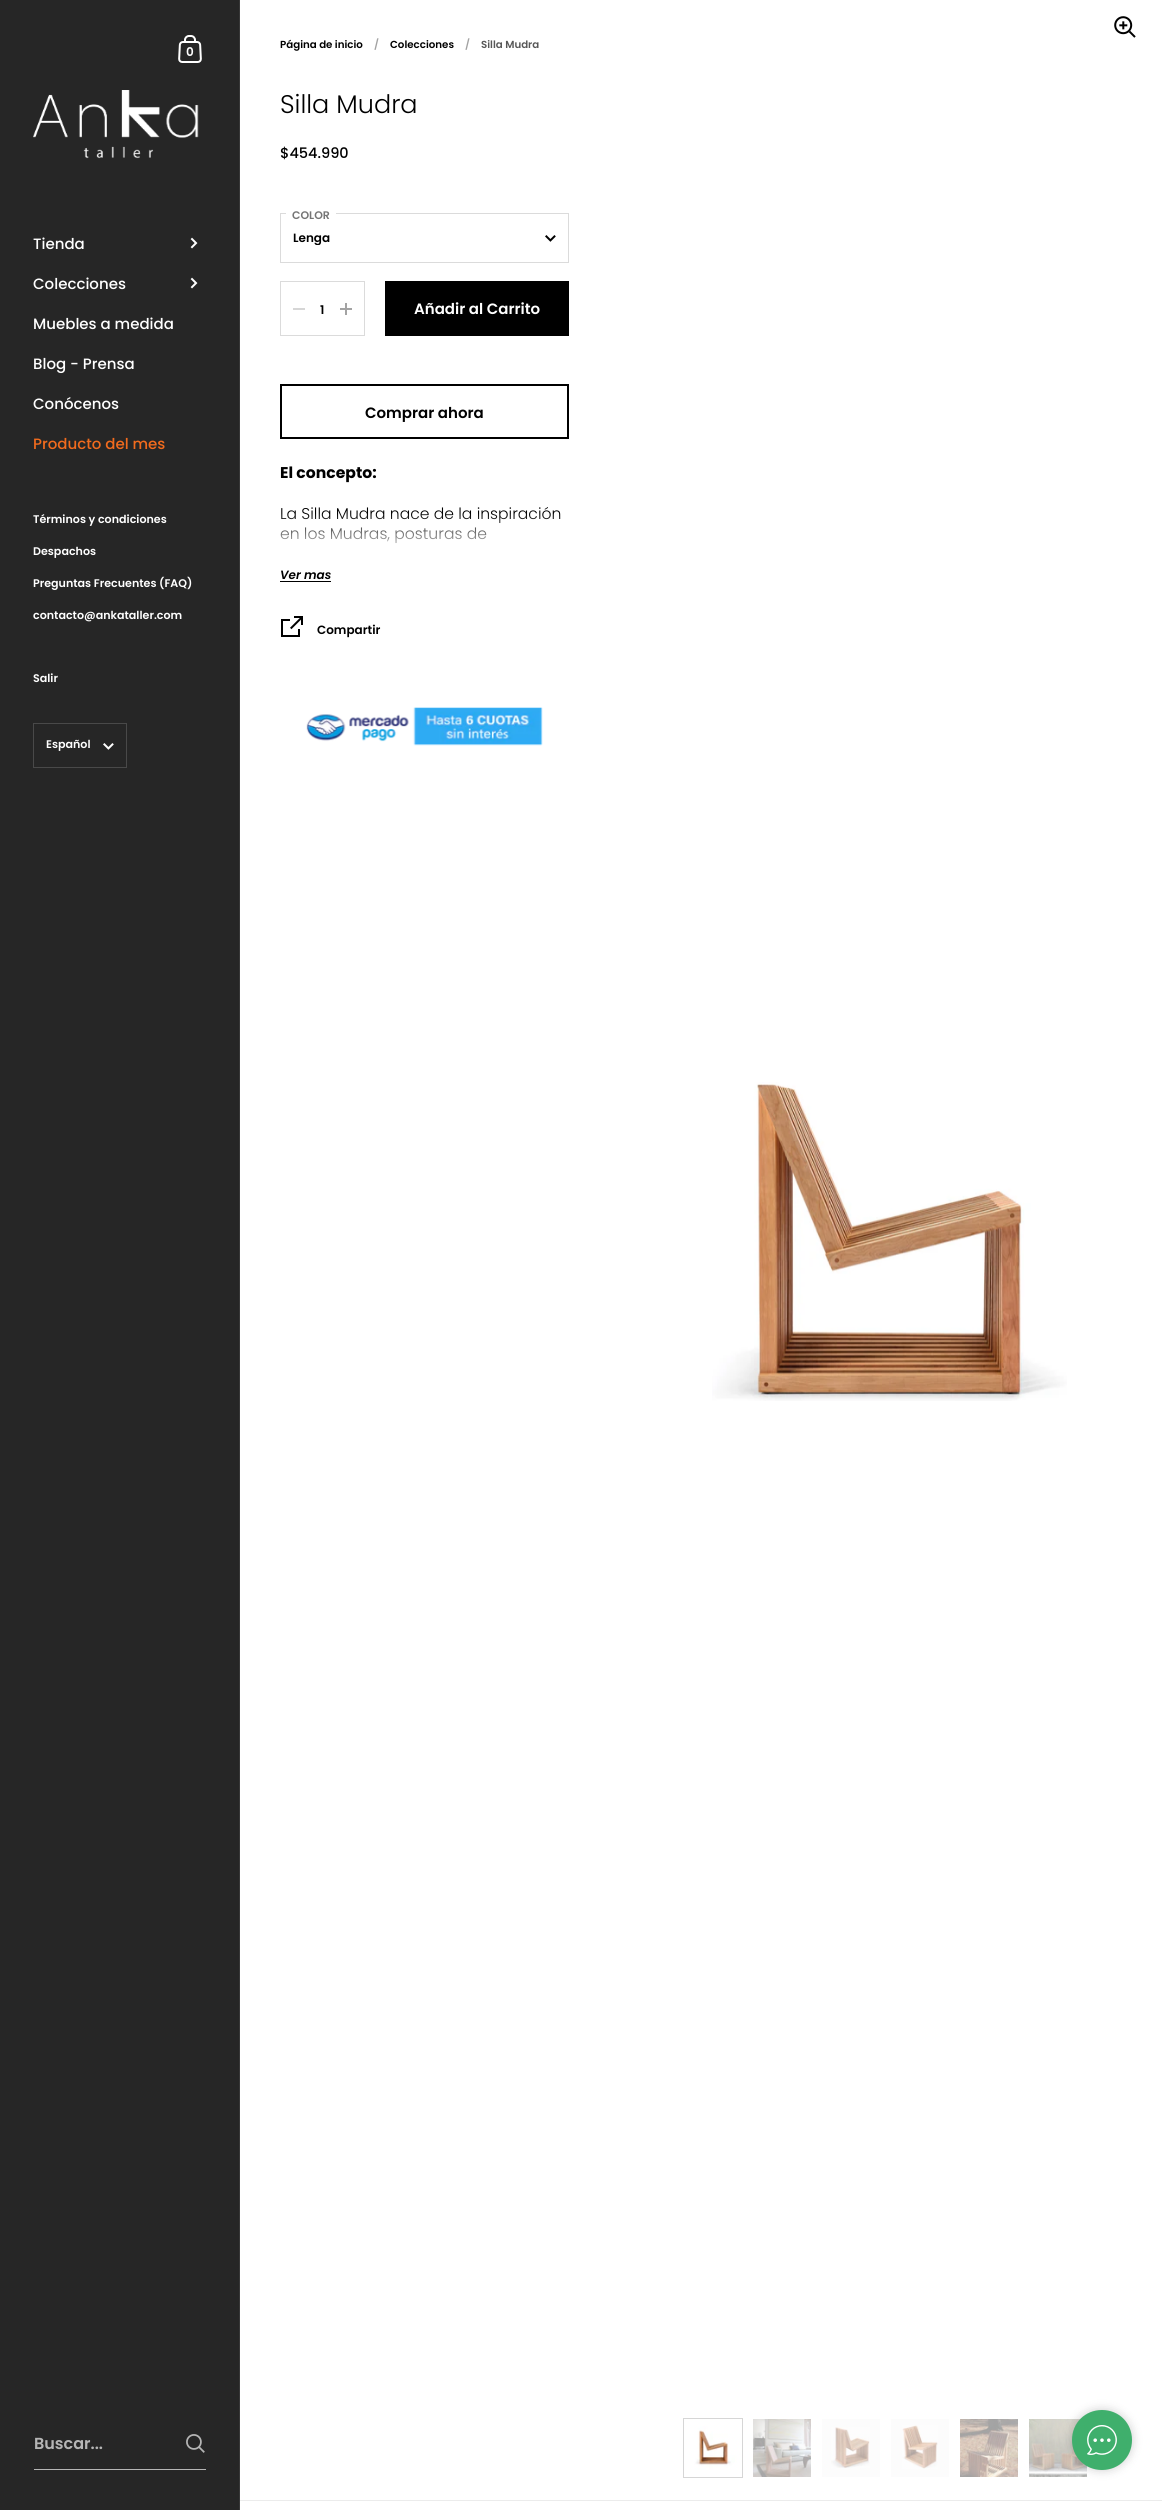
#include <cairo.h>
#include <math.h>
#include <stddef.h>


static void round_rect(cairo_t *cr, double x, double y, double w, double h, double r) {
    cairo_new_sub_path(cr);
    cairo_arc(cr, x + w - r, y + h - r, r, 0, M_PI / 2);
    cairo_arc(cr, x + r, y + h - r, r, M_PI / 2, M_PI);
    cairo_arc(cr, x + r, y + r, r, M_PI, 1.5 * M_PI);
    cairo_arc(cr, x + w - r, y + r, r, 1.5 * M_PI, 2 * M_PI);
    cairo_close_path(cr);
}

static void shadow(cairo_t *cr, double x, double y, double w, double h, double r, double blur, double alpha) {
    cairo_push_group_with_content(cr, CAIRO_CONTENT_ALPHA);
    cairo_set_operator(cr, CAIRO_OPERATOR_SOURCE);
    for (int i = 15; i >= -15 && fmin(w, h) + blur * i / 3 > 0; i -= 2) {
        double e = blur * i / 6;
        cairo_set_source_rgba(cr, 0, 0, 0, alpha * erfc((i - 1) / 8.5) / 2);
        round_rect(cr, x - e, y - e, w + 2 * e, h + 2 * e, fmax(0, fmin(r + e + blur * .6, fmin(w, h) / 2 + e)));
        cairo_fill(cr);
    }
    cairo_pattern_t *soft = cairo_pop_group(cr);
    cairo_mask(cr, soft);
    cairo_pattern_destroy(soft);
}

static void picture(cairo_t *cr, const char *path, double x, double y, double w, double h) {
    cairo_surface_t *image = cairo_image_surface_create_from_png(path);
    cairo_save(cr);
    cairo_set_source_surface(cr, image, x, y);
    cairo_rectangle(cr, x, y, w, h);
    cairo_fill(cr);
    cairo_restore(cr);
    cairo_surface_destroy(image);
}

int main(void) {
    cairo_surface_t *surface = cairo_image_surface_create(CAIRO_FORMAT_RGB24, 1162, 2510);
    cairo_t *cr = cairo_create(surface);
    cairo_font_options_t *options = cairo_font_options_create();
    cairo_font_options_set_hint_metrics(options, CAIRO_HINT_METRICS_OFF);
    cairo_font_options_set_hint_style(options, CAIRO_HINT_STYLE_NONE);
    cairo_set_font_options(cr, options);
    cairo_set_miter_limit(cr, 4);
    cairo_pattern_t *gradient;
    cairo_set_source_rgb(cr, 1, 1, 1);
    cairo_paint(cr);
    cairo_set_source_rgb(cr, 0.149, 0.149, 0.149);
    cairo_rectangle(cr, 0, 0, 239, 2510);
    cairo_fill(cr);
    cairo_set_source_rgb(cr, 0.216, 0.216, 0.216);
    cairo_rectangle(cr, 239, 0, 1, 2510);
    cairo_fill(cr);
    picture(cr, "img1.png", 178, 35, 24, 28);
    cairo_select_font_face(cr, "Poppins SemiBold", CAIRO_FONT_SLANT_NORMAL, CAIRO_FONT_WEIGHT_NORMAL);
    cairo_set_font_size(cr, 12);
    cairo_set_source_rgb(cr, 1, 1, 1);
    cairo_move_to(cr, 186, 56);
    cairo_show_text(cr, "0");
    picture(cr, "img2.png", 33, 90, 166, 69);
    cairo_select_font_face(cr, "Poppins Medium", CAIRO_FONT_SLANT_NORMAL, CAIRO_FONT_WEIGHT_NORMAL);
    cairo_set_font_size(cr, 15);
    cairo_move_to(cr, 33, 249);
    cairo_show_text(cr, "Tienda");
    picture(cr, "img3.png", 190, 237, 8, 12);
    cairo_move_to(cr, 33, 289);
    cairo_show_text(cr, "Colecciones");
    picture(cr, "img3.png", 190, 277, 8, 12);
    cairo_move_to(cr, 33, 329);
    cairo_show_text(cr, "Muebles a medida");
    cairo_move_to(cr, 33, 369);
    cairo_show_text(cr, "Blog - Prensa");
    cairo_move_to(cr, 33, 409);
    cairo_show_text(cr, "Conócenos");
    cairo_set_source_rgb(cr, 0.949, 0.42, 0.114);
    cairo_move_to(cr, 33, 449);
    cairo_show_text(cr, "Producto del mes");
    cairo_select_font_face(cr, "Poppins SemiBold", CAIRO_FONT_SLANT_NORMAL, CAIRO_FONT_WEIGHT_NORMAL);
    cairo_set_font_size(cr, 11.1);
    cairo_set_source_rgb(cr, 1, 1, 1);
    cairo_move_to(cr, 33, 523);
    cairo_show_text(cr, "Términos y condiciones");
    cairo_move_to(cr, 33, 555);
    cairo_show_text(cr, "Despachos");
    cairo_move_to(cr, 33, 587);
    cairo_show_text(cr, "Preguntas Frecuentes (FAQ)");
    cairo_move_to(cr, 33, 619);
    cairo_show_text(cr, "contacto@ankataller.com");
    cairo_move_to(cr, 33, 682);
    cairo_show_text(cr, "Salir");
    picture(cr, "img4.png", 103, 743, 11, 7);
    cairo_rectangle(cr, 33.5, 723.5, 93, 44);
    cairo_set_source_rgb(cr, 0.286, 0.286, 0.286);
    cairo_set_line_width(cr, 1);
    cairo_stroke(cr);
    cairo_set_source_rgb(cr, 1, 1, 1);
    cairo_move_to(cr, 46, 748);
    cairo_show_text(cr, "Español");
    cairo_set_source_rgb(cr, 0.71, 0.71, 0.71);
    cairo_rectangle(cr, 34, 2469, 172, 1);
    cairo_fill(cr);
    cairo_set_font_size(cr, 16);
    cairo_move_to(cr, 34, 2449);
    cairo_show_text(cr, "Buscar...");
    picture(cr, "img5.png", 186, 2434, 19, 19);
    cairo_set_source_rgb(cr, 0.922, 0.922, 0.922);
    cairo_rectangle(cr, 240, 2500, 922, 1);
    cairo_fill(cr);
    cairo_set_font_size(cr, 10.25);
    cairo_set_source_rgb(cr, 0, 0, 0);
    cairo_move_to(cr, 280, 48);
    cairo_show_text(cr, "Página de inicio");
    cairo_set_source_rgb(cr, 0.639, 0.639, 0.639);
    cairo_move_to(cr, 374, 48);
    cairo_show_text(cr, "/");
    cairo_set_source_rgb(cr, 0, 0, 0);
    cairo_move_to(cr, 390, 48);
    cairo_show_text(cr, "Colecciones");
    cairo_set_source_rgb(cr, 0.639, 0.639, 0.639);
    cairo_move_to(cr, 465, 48);
    cairo_show_text(cr, "/");
    cairo_set_source_rgb(cr, 0.341, 0.341, 0.341);
    cairo_move_to(cr, 481, 48);
    cairo_show_text(cr, "Silla Mudra");
    cairo_select_font_face(cr, "Poppins Light", CAIRO_FONT_SLANT_NORMAL, CAIRO_FONT_WEIGHT_NORMAL);
    cairo_set_font_size(cr, 25.5);
    cairo_set_source_rgb(cr, 0, 0, 0);
    cairo_move_to(cr, 280, 113);
    cairo_show_text(cr, "Silla Mudra");
    cairo_select_font_face(cr, "Poppins Medium", CAIRO_FONT_SLANT_NORMAL, CAIRO_FONT_WEIGHT_NORMAL);
    cairo_set_font_size(cr, 14.5);
    cairo_move_to(cr, 280, 158);
    cairo_show_text(cr, "$454.990");
    picture(cr, "img6.png", 545, 235, 11, 7);
    cairo_rectangle(cr, 280.5, 213.5, 288, 49);
    cairo_set_source_rgb(cr, 0.859, 0.859, 0.859);
    cairo_stroke(cr);
    cairo_set_source_rgb(cr, 1, 1, 1);
    cairo_rectangle(cr, 286, 213, 50, 1);
    cairo_fill(cr);
    cairo_select_font_face(cr, "Poppins SemiBold", CAIRO_FONT_SLANT_NORMAL, CAIRO_FONT_WEIGHT_NORMAL);
    cairo_set_font_size(cr, 11);
    cairo_set_source_rgb(cr, 0.459, 0.459, 0.459);
    cairo_move_to(cr, 292, 219);
    cairo_show_text(cr, "COLOR");
    cairo_save(cr);
    cairo_rectangle(cr, 293, 231, 225, 14);
    cairo_clip(cr);
    cairo_set_font_size(cr, 12);
    cairo_set_source_rgb(cr, 0, 0, 0);
    cairo_move_to(cr, 293, 242);
    cairo_show_text(cr, "Lenga");
    cairo_restore(cr);
    cairo_rectangle(cr, 280.5, 281.5, 84, 54);
    cairo_set_source_rgb(cr, 0.859, 0.859, 0.859);
    cairo_stroke(cr);
    cairo_set_source_rgb(cr, 0.839, 0.839, 0.839);
    cairo_rectangle(cr, 293, 308, 12, 2);
    cairo_fill(cr);
    cairo_set_font_size(cr, 12);
    cairo_set_source_rgb(cr, 0, 0, 0);
    cairo_move_to(cr, 320, 314);
    cairo_show_text(cr, "1");
    picture(cr, "img7.png", 340, 303, 12, 12);
    cairo_rectangle(cr, 385, 281, 184, 55);
    cairo_fill(cr);
    cairo_set_font_size(cr, 15);
    cairo_set_source_rgb(cr, 1, 1, 1);
    cairo_move_to(cr, 414, 314);
    cairo_show_text(cr, "Añadir al Carrito");
    cairo_rectangle(cr, 281, 385, 287, 53);
    cairo_set_source_rgb(cr, 0, 0, 0);
    cairo_set_line_width(cr, 2);
    cairo_stroke(cr);
    cairo_move_to(cr, 365, 418);
    cairo_show_text(cr, "Comprar ahora");
    cairo_select_font_face(cr, "Poppins", CAIRO_FONT_SLANT_NORMAL, CAIRO_FONT_WEIGHT_BOLD);
    cairo_set_font_size(cr, 15.6);
    cairo_move_to(cr, 280, 478);
    cairo_show_text(cr, "El concepto:");
    cairo_select_font_face(cr, "Poppins Light", CAIRO_FONT_SLANT_NORMAL, CAIRO_FONT_WEIGHT_NORMAL);
    cairo_move_to(cr, 280, 519);
    cairo_show_text(cr, "La Silla Mudra nace de la inspiración");
    cairo_move_to(cr, 280, 539);
    cairo_show_text(cr, "en los Mudras, posturas de");
    gradient = cairo_pattern_create_linear(425, 563, 425, 513);
    cairo_pattern_add_color_stop_rgba(gradient, 0, 1, 1, 1, 1);
    cairo_pattern_add_color_stop_rgba(gradient, 0.1, 1, 1, 1, 1);
    cairo_pattern_add_color_stop_rgba(gradient, 1, 1, 1, 1, 0);
    cairo_set_source(cr, gradient);
    cairo_pattern_destroy(gradient);
    cairo_rectangle(cr, 280, 514, 280, 29);
    cairo_fill(cr);
    cairo_set_source_rgb(cr, 0, 0, 0);
    cairo_rectangle(cr, 280, 581, 51, 1);
    cairo_fill(cr);
    cairo_select_font_face(cr, "Poppins SemiBold", CAIRO_FONT_SLANT_ITALIC, CAIRO_FONT_WEIGHT_NORMAL);
    cairo_set_font_size(cr, 12);
    cairo_move_to(cr, 280, 579);
    cairo_show_text(cr, "Ver mas");
    picture(cr, "img8.png", 281, 616, 22, 21);
    cairo_select_font_face(cr, "Poppins SemiBold", CAIRO_FONT_SLANT_NORMAL, CAIRO_FONT_WEIGHT_NORMAL);
    cairo_move_to(cr, 317, 634);
    cairo_show_text(cr, "Compartir");
    picture(cr, "img9.png", 306, 707, 237, 39);
    picture(cr, "img10.png", 1114, 16, 22, 22);
    picture(cr, "img11.png", 712, 1082, 355, 319);
    cairo_rectangle(cr, 683.5, 2418.5, 59, 59);
    cairo_set_source_rgb(cr, 0.839, 0.839, 0.839);
    cairo_set_line_width(cr, 1);
    cairo_stroke(cr);
    picture(cr, "img12.png", 684, 2419, 58, 58);
    cairo_set_source_rgb(cr, 0.988, 0.988, 0.988);
    cairo_rectangle(cr, 753, 2419, 58, 58);
    cairo_fill(cr);
    picture(cr, "img13.png", 753, 2419, 58, 58);
    cairo_rectangle(cr, 822, 2419, 58, 58);
    cairo_fill(cr);
    picture(cr, "img14.png", 831, 2427, 39, 41);
    cairo_rectangle(cr, 891, 2419, 58, 58);
    cairo_fill(cr);
    picture(cr, "img15.png", 902, 2425, 36, 44);
    cairo_rectangle(cr, 960, 2419, 58, 58);
    cairo_fill(cr);
    picture(cr, "img16.png", 960, 2419, 58, 58);
    cairo_rectangle(cr, 1029, 2419, 58, 58);
    cairo_fill(cr);
    picture(cr, "img17.png", 1029, 2419, 58, 58);
    cairo_set_source_rgb(cr, 0, 0, 0);
    shadow(cr, 1072, 2410, 60, 60, 30, 5, 0.2);
    cairo_set_source_rgb(cr, 0.247, 0.686, 0.424);
    cairo_new_path(cr);
    cairo_move_to(cr, 1102, 2470);
    cairo_curve_to(cr, 1085, 2470, 1072, 2457, 1072, 2440);
    cairo_curve_to(cr, 1072, 2423, 1085, 2410, 1102, 2410);
    cairo_curve_to(cr, 1119, 2410, 1132, 2423, 1132, 2440);
    cairo_curve_to(cr, 1132, 2457, 1119, 2470, 1102, 2470);
    cairo_close_path(cr);
    cairo_fill(cr);
    picture(cr, "img18.png", 1087, 2425, 30, 30);
    cairo_surface_write_to_png(surface, "page.png");
    cairo_font_options_destroy(options);
    cairo_destroy(cr);
    cairo_surface_destroy(surface);
    return 0;
}
